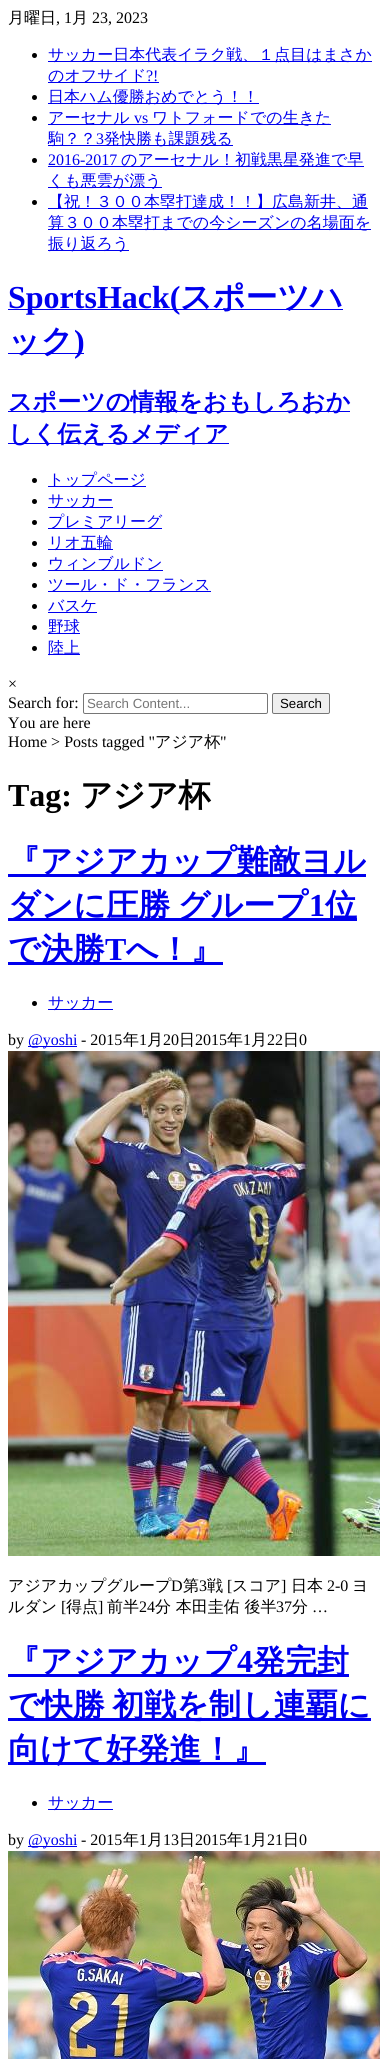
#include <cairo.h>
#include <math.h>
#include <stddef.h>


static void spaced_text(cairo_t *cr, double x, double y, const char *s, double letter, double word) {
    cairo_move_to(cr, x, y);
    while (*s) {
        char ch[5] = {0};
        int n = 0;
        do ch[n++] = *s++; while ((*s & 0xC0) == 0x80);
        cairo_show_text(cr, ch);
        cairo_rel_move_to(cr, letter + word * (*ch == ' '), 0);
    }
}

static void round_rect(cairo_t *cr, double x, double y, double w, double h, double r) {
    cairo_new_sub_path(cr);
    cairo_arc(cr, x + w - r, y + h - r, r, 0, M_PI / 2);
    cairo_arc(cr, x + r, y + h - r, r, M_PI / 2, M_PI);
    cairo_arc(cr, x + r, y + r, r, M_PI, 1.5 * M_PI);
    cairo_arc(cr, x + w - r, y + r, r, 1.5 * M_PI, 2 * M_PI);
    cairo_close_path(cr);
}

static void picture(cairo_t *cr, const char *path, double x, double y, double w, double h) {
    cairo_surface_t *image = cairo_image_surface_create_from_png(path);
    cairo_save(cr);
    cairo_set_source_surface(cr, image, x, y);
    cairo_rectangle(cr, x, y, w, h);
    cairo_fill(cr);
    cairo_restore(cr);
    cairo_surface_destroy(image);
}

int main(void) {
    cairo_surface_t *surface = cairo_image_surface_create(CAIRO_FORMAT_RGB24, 380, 2059);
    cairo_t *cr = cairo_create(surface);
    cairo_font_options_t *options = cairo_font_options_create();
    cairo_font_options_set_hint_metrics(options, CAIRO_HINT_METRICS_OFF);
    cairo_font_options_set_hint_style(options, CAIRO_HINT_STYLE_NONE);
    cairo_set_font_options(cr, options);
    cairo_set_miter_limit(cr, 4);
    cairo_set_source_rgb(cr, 1, 1, 1);
    cairo_paint(cr);
    cairo_select_font_face(cr, "WenQuanYi Zen Hei Medium", CAIRO_FONT_SLANT_NORMAL, CAIRO_FONT_WEIGHT_NORMAL);
    cairo_set_font_size(cr, 16);
    cairo_set_source_rgb(cr, 0, 0, 0);
    cairo_move_to(cr, 8, 23);
    cairo_show_text(cr, "月曜日");
    cairo_select_font_face(cr, "Liberation Serif", CAIRO_FONT_SLANT_NORMAL, CAIRO_FONT_WEIGHT_NORMAL);
    cairo_move_to(cr, 56, 23);
    cairo_show_text(cr, ", 1");
    cairo_select_font_face(cr, "WenQuanYi Zen Hei Medium", CAIRO_FONT_SLANT_NORMAL, CAIRO_FONT_WEIGHT_NORMAL);
    cairo_move_to(cr, 72, 23);
    cairo_show_text(cr, "月");
    cairo_select_font_face(cr, "Liberation Serif", CAIRO_FONT_SLANT_NORMAL, CAIRO_FONT_WEIGHT_NORMAL);
    cairo_move_to(cr, 92, 23);
    cairo_show_text(cr, "23, 2023");
    cairo_new_path(cr);
    cairo_arc(cr, 34.5, 55.5, 2.5, 0, 2 * M_PI);
    cairo_fill(cr);
    cairo_set_source_rgb(cr, 0, 0, 0.933);
    cairo_rectangle(cr, 48, 61, 324, 1);
    cairo_fill(cr);
    cairo_select_font_face(cr, "WenQuanYi Zen Hei Medium", CAIRO_FONT_SLANT_NORMAL, CAIRO_FONT_WEIGHT_NORMAL);
    cairo_move_to(cr, 48, 60);
    cairo_show_text(cr, "サッカー日本代表イラク戦、１点目はまさか");
    cairo_rectangle(cr, 48, 82, 111, 1);
    cairo_fill(cr);
    cairo_move_to(cr, 48, 81);
    cairo_show_text(cr, "のオフサイド");
    cairo_select_font_face(cr, "Liberation Serif", CAIRO_FONT_SLANT_NORMAL, CAIRO_FONT_WEIGHT_NORMAL);
    cairo_move_to(cr, 146, 81);
    cairo_show_text(cr, "?!");
    cairo_set_source_rgb(cr, 0, 0, 0);
    cairo_new_path(cr);
    cairo_arc(cr, 34.5, 97.5, 2.5, 0, 2 * M_PI);
    cairo_fill(cr);
    cairo_set_source_rgb(cr, 0, 0, 0.933);
    cairo_rectangle(cr, 48, 103, 211, 1);
    cairo_fill(cr);
    cairo_select_font_face(cr, "WenQuanYi Zen Hei Medium", CAIRO_FONT_SLANT_NORMAL, CAIRO_FONT_WEIGHT_NORMAL);
    cairo_move_to(cr, 48, 102);
    cairo_show_text(cr, "日本ハム優勝おめでとう！！");
    cairo_set_source_rgb(cr, 0, 0, 0);
    cairo_new_path(cr);
    cairo_arc(cr, 34.5, 118.5, 2.5, 0, 2 * M_PI);
    cairo_fill(cr);
    cairo_set_source_rgb(cr, 0, 0, 0.933);
    cairo_rectangle(cr, 48, 124, 283, 1);
    cairo_fill(cr);
    cairo_move_to(cr, 48, 123);
    cairo_show_text(cr, "アーセナル");
    cairo_select_font_face(cr, "Liberation Serif", CAIRO_FONT_SLANT_NORMAL, CAIRO_FONT_WEIGHT_NORMAL);
    cairo_move_to(cr, 134, 123);
    cairo_show_text(cr, "vs");
    cairo_select_font_face(cr, "WenQuanYi Zen Hei Medium", CAIRO_FONT_SLANT_NORMAL, CAIRO_FONT_WEIGHT_NORMAL);
    cairo_move_to(cr, 152, 123);
    cairo_show_text(cr, "ワトフォードでの生きた");
    cairo_rectangle(cr, 48, 145, 185, 1);
    cairo_fill(cr);
    cairo_move_to(cr, 48, 144);
    cairo_show_text(cr, "駒？？");
    cairo_select_font_face(cr, "Liberation Serif", CAIRO_FONT_SLANT_NORMAL, CAIRO_FONT_WEIGHT_NORMAL);
    cairo_move_to(cr, 96, 144);
    cairo_show_text(cr, "3");
    cairo_select_font_face(cr, "WenQuanYi Zen Hei Medium", CAIRO_FONT_SLANT_NORMAL, CAIRO_FONT_WEIGHT_NORMAL);
    cairo_move_to(cr, 104, 144);
    cairo_show_text(cr, "発快勝も課題残る");
    cairo_set_source_rgb(cr, 0, 0, 0);
    cairo_new_path(cr);
    cairo_arc(cr, 34.5, 160.5, 2.5, 0, 2 * M_PI);
    cairo_fill(cr);
    cairo_select_font_face(cr, "Liberation Serif", CAIRO_FONT_SLANT_NORMAL, CAIRO_FONT_WEIGHT_NORMAL);
    cairo_set_source_rgb(cr, 0, 0, 0.933);
    cairo_move_to(cr, 48, 165);
    cairo_show_text(cr, "2016-2017");
    cairo_rectangle(cr, 48, 166, 316, 1);
    cairo_fill(cr);
    cairo_select_font_face(cr, "WenQuanYi Zen Hei Medium", CAIRO_FONT_SLANT_NORMAL, CAIRO_FONT_WEIGHT_NORMAL);
    cairo_move_to(cr, 121, 165);
    cairo_show_text(cr, "のアーセナル！初戦黒星発進で早");
    cairo_rectangle(cr, 48, 187, 114, 1);
    cairo_fill(cr);
    cairo_move_to(cr, 48, 186);
    cairo_show_text(cr, "くも悪雲が漂う");
    cairo_set_source_rgb(cr, 0, 0, 0);
    cairo_new_path(cr);
    cairo_arc(cr, 34.5, 202.5, 2.5, 0, 2 * M_PI);
    cairo_fill(cr);
    cairo_set_source_rgb(cr, 0, 0, 0.933);
    cairo_rectangle(cr, 48, 208, 320, 1);
    cairo_fill(cr);
    cairo_move_to(cr, 48, 207);
    cairo_show_text(cr, "【祝！３００本塁打達成！！】広島新井、通");
    cairo_rectangle(cr, 48, 229, 323, 1);
    cairo_fill(cr);
    cairo_move_to(cr, 48, 228);
    cairo_show_text(cr, "算３００本塁打までの今シーズンの名場面を");
    cairo_rectangle(cr, 48, 250, 81, 1);
    cairo_fill(cr);
    cairo_move_to(cr, 48, 249);
    cairo_show_text(cr, "振り返ろう");
    cairo_rectangle(cr, 8, 309, 335, 1);
    cairo_fill(cr);
    cairo_select_font_face(cr, "Liberation Serif", CAIRO_FONT_SLANT_NORMAL, CAIRO_FONT_WEIGHT_BOLD);
    cairo_set_font_size(cr, 32);
    cairo_move_to(cr, 8, 308);
    cairo_show_text(cr, "SportsHack(");
    cairo_select_font_face(cr, "WenQuanYi Zen Hei", CAIRO_FONT_SLANT_NORMAL, CAIRO_FONT_WEIGHT_BOLD);
    cairo_move_to(cr, 180, 308);
    cairo_show_text(cr, "スポーツハ");
    cairo_rectangle(cr, 8, 353, 76, 1);
    cairo_fill(cr);
    cairo_move_to(cr, 8, 352);
    cairo_show_text(cr, "ック");
    cairo_select_font_face(cr, "Liberation Serif", CAIRO_FONT_SLANT_NORMAL, CAIRO_FONT_WEIGHT_BOLD);
    cairo_move_to(cr, 74, 352);
    cairo_show_text(cr, ")");
    cairo_rectangle(cr, 8, 411, 342, 1);
    cairo_fill(cr);
    cairo_select_font_face(cr, "WenQuanYi Zen Hei", CAIRO_FONT_SLANT_NORMAL, CAIRO_FONT_WEIGHT_BOLD);
    cairo_set_font_size(cr, 24);
    cairo_move_to(cr, 8, 410);
    cairo_show_text(cr, "スポーツの情報をおもしろおか");
    cairo_rectangle(cr, 8, 443, 221, 1);
    cairo_fill(cr);
    cairo_move_to(cr, 8, 442);
    cairo_show_text(cr, "しく伝えるメディア");
    cairo_set_source_rgb(cr, 0, 0, 0);
    cairo_new_path(cr);
    cairo_arc(cr, 34.5, 480.5, 2.5, 0, 2 * M_PI);
    cairo_fill(cr);
    cairo_set_source_rgb(cr, 0, 0, 0.933);
    cairo_rectangle(cr, 48, 486, 98, 1);
    cairo_fill(cr);
    cairo_select_font_face(cr, "WenQuanYi Zen Hei Medium", CAIRO_FONT_SLANT_NORMAL, CAIRO_FONT_WEIGHT_NORMAL);
    cairo_set_font_size(cr, 16);
    cairo_move_to(cr, 48, 485);
    cairo_show_text(cr, "トップページ");
    cairo_set_source_rgb(cr, 0, 0, 0);
    cairo_new_path(cr);
    cairo_arc(cr, 34.5, 501.5, 2.5, 0, 2 * M_PI);
    cairo_fill(cr);
    cairo_set_source_rgb(cr, 0, 0, 0.933);
    cairo_rectangle(cr, 48, 507, 65, 1);
    cairo_fill(cr);
    cairo_move_to(cr, 48, 506);
    cairo_show_text(cr, "サッカー");
    cairo_set_source_rgb(cr, 0, 0, 0);
    cairo_new_path(cr);
    cairo_arc(cr, 34.5, 522.5, 2.5, 0, 2 * M_PI);
    cairo_fill(cr);
    cairo_set_source_rgb(cr, 0, 0, 0.933);
    cairo_rectangle(cr, 48, 528, 114, 1);
    cairo_fill(cr);
    cairo_move_to(cr, 48, 527);
    cairo_show_text(cr, "プレミアリーグ");
    cairo_set_source_rgb(cr, 0, 0, 0);
    cairo_new_path(cr);
    cairo_arc(cr, 34.5, 543.5, 2.5, 0, 2 * M_PI);
    cairo_fill(cr);
    cairo_set_source_rgb(cr, 0, 0, 0.933);
    cairo_rectangle(cr, 48, 549, 65, 1);
    cairo_fill(cr);
    cairo_move_to(cr, 48, 548);
    cairo_show_text(cr, "リオ五輪");
    cairo_set_source_rgb(cr, 0, 0, 0);
    cairo_new_path(cr);
    cairo_arc(cr, 34.5, 564.5, 2.5, 0, 2 * M_PI);
    cairo_fill(cr);
    cairo_set_source_rgb(cr, 0, 0, 0.933);
    cairo_rectangle(cr, 48, 570, 115, 1);
    cairo_fill(cr);
    cairo_move_to(cr, 48, 569);
    cairo_show_text(cr, "ウィンブルドン");
    cairo_set_source_rgb(cr, 0, 0, 0);
    cairo_new_path(cr);
    cairo_arc(cr, 34.5, 585.5, 2.5, 0, 2 * M_PI);
    cairo_fill(cr);
    cairo_set_source_rgb(cr, 0, 0, 0.933);
    cairo_rectangle(cr, 48, 591, 163, 1);
    cairo_fill(cr);
    cairo_move_to(cr, 48, 590);
    cairo_show_text(cr, "ツール・ド・フランス");
    cairo_set_source_rgb(cr, 0, 0, 0);
    cairo_new_path(cr);
    cairo_arc(cr, 34.5, 606.5, 2.5, 0, 2 * M_PI);
    cairo_fill(cr);
    cairo_set_source_rgb(cr, 0, 0, 0.933);
    cairo_rectangle(cr, 48, 612, 49, 1);
    cairo_fill(cr);
    cairo_move_to(cr, 48, 611);
    cairo_show_text(cr, "バスケ");
    cairo_set_source_rgb(cr, 0, 0, 0);
    cairo_new_path(cr);
    cairo_arc(cr, 34.5, 627.5, 2.5, 0, 2 * M_PI);
    cairo_fill(cr);
    cairo_set_source_rgb(cr, 0, 0, 0.933);
    cairo_rectangle(cr, 48, 633, 32, 1);
    cairo_fill(cr);
    cairo_move_to(cr, 48, 632);
    cairo_show_text(cr, "野球");
    cairo_set_source_rgb(cr, 0, 0, 0);
    cairo_new_path(cr);
    cairo_arc(cr, 34.5, 648.5, 2.5, 0, 2 * M_PI);
    cairo_fill(cr);
    cairo_set_source_rgb(cr, 0, 0, 0.933);
    cairo_rectangle(cr, 48, 654, 32, 1);
    cairo_fill(cr);
    cairo_move_to(cr, 48, 653);
    cairo_show_text(cr, "陸上");
    cairo_select_font_face(cr, "Liberation Serif", CAIRO_FONT_SLANT_NORMAL, CAIRO_FONT_WEIGHT_NORMAL);
    cairo_set_source_rgb(cr, 0, 0, 0);
    cairo_move_to(cr, 8, 689);
    cairo_show_text(cr, "×");
    cairo_move_to(cr, 8, 708);
    cairo_show_text(cr, "Search for:");
    round_rect(cr, 83.5, 693.5, 184, 20, 1.5);
    cairo_set_source_rgb(cr, 0.463, 0.463, 0.463);
    cairo_set_line_width(cr, 1);
    cairo_stroke(cr);
    cairo_select_font_face(cr, "Liberation Sans", CAIRO_FONT_SLANT_NORMAL, CAIRO_FONT_WEIGHT_NORMAL);
    cairo_set_font_size(cr, 13.25);
    cairo_set_source_rgb(cr, 0.459, 0.459, 0.459);
    cairo_move_to(cr, 87, 708);
    cairo_show_text(cr, "Search Content...");
    cairo_set_source_rgb(cr, 0.937, 0.937, 0.937);
    round_rect(cr, 272.5, 693.5, 57, 20, 1.5);
    cairo_fill_preserve(cr);
    cairo_set_source_rgb(cr, 0.463, 0.463, 0.463);
    cairo_stroke(cr);
    cairo_set_source_rgb(cr, 0, 0, 0);
    cairo_move_to(cr, 280, 708);
    cairo_show_text(cr, "Search");
    cairo_select_font_face(cr, "Liberation Serif", CAIRO_FONT_SLANT_NORMAL, CAIRO_FONT_WEIGHT_NORMAL);
    cairo_set_font_size(cr, 16);
    cairo_move_to(cr, 8, 728);
    cairo_show_text(cr, "You are here");
    cairo_move_to(cr, 8, 747);
    cairo_show_text(cr, "Home > Posts tagged \"");
    cairo_select_font_face(cr, "WenQuanYi Zen Hei Medium", CAIRO_FONT_SLANT_NORMAL, CAIRO_FONT_WEIGHT_NORMAL);
    cairo_move_to(cr, 155, 747);
    cairo_show_text(cr, "アジア杯");
    cairo_select_font_face(cr, "Liberation Serif", CAIRO_FONT_SLANT_NORMAL, CAIRO_FONT_WEIGHT_NORMAL);
    cairo_move_to(cr, 220, 747);
    cairo_show_text(cr, "\"");
    cairo_select_font_face(cr, "Liberation Serif", CAIRO_FONT_SLANT_NORMAL, CAIRO_FONT_WEIGHT_BOLD);
    cairo_set_font_size(cr, 32);
    cairo_move_to(cr, 8, 806);
    cairo_show_text(cr, "Tag:");
    cairo_select_font_face(cr, "WenQuanYi Zen Hei", CAIRO_FONT_SLANT_NORMAL, CAIRO_FONT_WEIGHT_BOLD);
    cairo_move_to(cr, 80, 806);
    cairo_show_text(cr, "アジア杯");
    cairo_set_source_rgb(cr, 0, 0, 0.933);
    cairo_rectangle(cr, 8, 874, 358, 3);
    cairo_fill(cr);
    cairo_move_to(cr, 8, 872);
    cairo_show_text(cr, "『アジアカップ難敵ヨル");
    cairo_rectangle(cr, 8, 918, 349, 3);
    cairo_fill(cr);
    spaced_text(cr, 8, 916, "ダンに圧勝 グループ", 0, -2);
    cairo_select_font_face(cr, "Liberation Serif", CAIRO_FONT_SLANT_NORMAL, CAIRO_FONT_WEIGHT_BOLD);
    cairo_move_to(cr, 309, 916);
    cairo_show_text(cr, "1");
    cairo_select_font_face(cr, "WenQuanYi Zen Hei", CAIRO_FONT_SLANT_NORMAL, CAIRO_FONT_WEIGHT_BOLD);
    cairo_move_to(cr, 325, 916);
    cairo_show_text(cr, "位");
    cairo_rectangle(cr, 8, 962, 215, 3);
    cairo_fill(cr);
    cairo_move_to(cr, 8, 960);
    cairo_show_text(cr, "で決勝");
    cairo_select_font_face(cr, "Liberation Serif", CAIRO_FONT_SLANT_NORMAL, CAIRO_FONT_WEIGHT_BOLD);
    cairo_move_to(cr, 105, 960);
    cairo_show_text(cr, "T");
    cairo_select_font_face(cr, "WenQuanYi Zen Hei", CAIRO_FONT_SLANT_NORMAL, CAIRO_FONT_WEIGHT_BOLD);
    cairo_move_to(cr, 126, 960);
    cairo_show_text(cr, "へ！』");
    cairo_set_source_rgb(cr, 0, 0, 0);
    cairo_new_path(cr);
    cairo_arc(cr, 34.5, 1003.5, 2.5, 0, 2 * M_PI);
    cairo_fill(cr);
    cairo_set_source_rgb(cr, 0, 0, 0.933);
    cairo_rectangle(cr, 48, 1009, 65, 1);
    cairo_fill(cr);
    cairo_select_font_face(cr, "WenQuanYi Zen Hei Medium", CAIRO_FONT_SLANT_NORMAL, CAIRO_FONT_WEIGHT_NORMAL);
    cairo_set_font_size(cr, 16);
    cairo_move_to(cr, 48, 1008);
    cairo_show_text(cr, "サッカー");
    cairo_select_font_face(cr, "Liberation Serif", CAIRO_FONT_SLANT_NORMAL, CAIRO_FONT_WEIGHT_NORMAL);
    cairo_set_source_rgb(cr, 0, 0, 0);
    cairo_move_to(cr, 8, 1045);
    cairo_show_text(cr, "by");
    cairo_set_source_rgb(cr, 0, 0, 0.933);
    cairo_rectangle(cr, 28, 1046, 49, 1);
    cairo_fill(cr);
    cairo_move_to(cr, 28, 1045);
    cairo_show_text(cr, "@yoshi");
    cairo_set_source_rgb(cr, 0, 0, 0);
    cairo_move_to(cr, 81, 1045);
    cairo_show_text(cr, "- 2015");
    cairo_select_font_face(cr, "WenQuanYi Zen Hei Medium", CAIRO_FONT_SLANT_NORMAL, CAIRO_FONT_WEIGHT_NORMAL);
    cairo_move_to(cr, 123, 1045);
    cairo_show_text(cr, "年");
    cairo_select_font_face(cr, "Liberation Serif", CAIRO_FONT_SLANT_NORMAL, CAIRO_FONT_WEIGHT_NORMAL);
    cairo_move_to(cr, 139, 1045);
    cairo_show_text(cr, "1");
    cairo_select_font_face(cr, "WenQuanYi Zen Hei Medium", CAIRO_FONT_SLANT_NORMAL, CAIRO_FONT_WEIGHT_NORMAL);
    cairo_move_to(cr, 147, 1045);
    cairo_show_text(cr, "月");
    cairo_select_font_face(cr, "Liberation Serif", CAIRO_FONT_SLANT_NORMAL, CAIRO_FONT_WEIGHT_NORMAL);
    cairo_move_to(cr, 163, 1045);
    cairo_show_text(cr, "20");
    cairo_select_font_face(cr, "WenQuanYi Zen Hei Medium", CAIRO_FONT_SLANT_NORMAL, CAIRO_FONT_WEIGHT_NORMAL);
    cairo_move_to(cr, 179, 1045);
    cairo_show_text(cr, "日");
    cairo_select_font_face(cr, "Liberation Serif", CAIRO_FONT_SLANT_NORMAL, CAIRO_FONT_WEIGHT_NORMAL);
    cairo_move_to(cr, 195, 1045);
    cairo_show_text(cr, "2015");
    cairo_select_font_face(cr, "WenQuanYi Zen Hei Medium", CAIRO_FONT_SLANT_NORMAL, CAIRO_FONT_WEIGHT_NORMAL);
    cairo_move_to(cr, 227, 1045);
    cairo_show_text(cr, "年");
    cairo_select_font_face(cr, "Liberation Serif", CAIRO_FONT_SLANT_NORMAL, CAIRO_FONT_WEIGHT_NORMAL);
    cairo_move_to(cr, 243, 1045);
    cairo_show_text(cr, "1");
    cairo_select_font_face(cr, "WenQuanYi Zen Hei Medium", CAIRO_FONT_SLANT_NORMAL, CAIRO_FONT_WEIGHT_NORMAL);
    cairo_move_to(cr, 251, 1045);
    cairo_show_text(cr, "月");
    cairo_select_font_face(cr, "Liberation Serif", CAIRO_FONT_SLANT_NORMAL, CAIRO_FONT_WEIGHT_NORMAL);
    cairo_move_to(cr, 267, 1045);
    cairo_show_text(cr, "22");
    cairo_select_font_face(cr, "WenQuanYi Zen Hei Medium", CAIRO_FONT_SLANT_NORMAL, CAIRO_FONT_WEIGHT_NORMAL);
    cairo_move_to(cr, 283, 1045);
    cairo_show_text(cr, "日");
    cairo_select_font_face(cr, "Liberation Serif", CAIRO_FONT_SLANT_NORMAL, CAIRO_FONT_WEIGHT_NORMAL);
    cairo_move_to(cr, 299, 1045);
    cairo_show_text(cr, "0");
    picture(cr, "img1.png", 8, 1051, 372, 505);
    cairo_select_font_face(cr, "WenQuanYi Zen Hei Medium", CAIRO_FONT_SLANT_NORMAL, CAIRO_FONT_WEIGHT_NORMAL);
    cairo_move_to(cr, 8, 1591);
    cairo_show_text(cr, "アジアカップグループ");
    cairo_select_font_face(cr, "Liberation Serif", CAIRO_FONT_SLANT_NORMAL, CAIRO_FONT_WEIGHT_NORMAL);
    cairo_move_to(cr, 171, 1591);
    cairo_show_text(cr, "D");
    cairo_select_font_face(cr, "WenQuanYi Zen Hei Medium", CAIRO_FONT_SLANT_NORMAL, CAIRO_FONT_WEIGHT_NORMAL);
    cairo_move_to(cr, 183, 1591);
    cairo_show_text(cr, "第");
    cairo_select_font_face(cr, "Liberation Serif", CAIRO_FONT_SLANT_NORMAL, CAIRO_FONT_WEIGHT_NORMAL);
    cairo_move_to(cr, 199, 1591);
    cairo_show_text(cr, "3");
    cairo_select_font_face(cr, "WenQuanYi Zen Hei Medium", CAIRO_FONT_SLANT_NORMAL, CAIRO_FONT_WEIGHT_NORMAL);
    cairo_move_to(cr, 207, 1591);
    cairo_show_text(cr, "戦");
    cairo_select_font_face(cr, "Liberation Serif", CAIRO_FONT_SLANT_NORMAL, CAIRO_FONT_WEIGHT_NORMAL);
    cairo_move_to(cr, 227, 1591);
    cairo_show_text(cr, "[");
    cairo_select_font_face(cr, "WenQuanYi Zen Hei Medium", CAIRO_FONT_SLANT_NORMAL, CAIRO_FONT_WEIGHT_NORMAL);
    cairo_move_to(cr, 232, 1591);
    cairo_show_text(cr, "スコア");
    cairo_select_font_face(cr, "Liberation Serif", CAIRO_FONT_SLANT_NORMAL, CAIRO_FONT_WEIGHT_NORMAL);
    cairo_move_to(cr, 281, 1591);
    cairo_show_text(cr, "]");
    cairo_select_font_face(cr, "WenQuanYi Zen Hei Medium", CAIRO_FONT_SLANT_NORMAL, CAIRO_FONT_WEIGHT_NORMAL);
    cairo_move_to(cr, 291, 1591);
    cairo_show_text(cr, "日本");
    cairo_select_font_face(cr, "Liberation Serif", CAIRO_FONT_SLANT_NORMAL, CAIRO_FONT_WEIGHT_NORMAL);
    cairo_move_to(cr, 327, 1591);
    cairo_show_text(cr, "2-0");
    cairo_select_font_face(cr, "WenQuanYi Zen Hei Medium", CAIRO_FONT_SLANT_NORMAL, CAIRO_FONT_WEIGHT_NORMAL);
    cairo_move_to(cr, 352, 1591);
    cairo_show_text(cr, "ヨ");
    cairo_move_to(cr, 8, 1612);
    cairo_show_text(cr, "ルダン");
    cairo_select_font_face(cr, "Liberation Serif", CAIRO_FONT_SLANT_NORMAL, CAIRO_FONT_WEIGHT_NORMAL);
    cairo_move_to(cr, 61, 1612);
    cairo_show_text(cr, "[");
    cairo_select_font_face(cr, "WenQuanYi Zen Hei Medium", CAIRO_FONT_SLANT_NORMAL, CAIRO_FONT_WEIGHT_NORMAL);
    cairo_move_to(cr, 66, 1612);
    cairo_show_text(cr, "得点");
    cairo_select_font_face(cr, "Liberation Serif", CAIRO_FONT_SLANT_NORMAL, CAIRO_FONT_WEIGHT_NORMAL);
    cairo_move_to(cr, 98, 1612);
    cairo_show_text(cr, "]");
    cairo_select_font_face(cr, "WenQuanYi Zen Hei Medium", CAIRO_FONT_SLANT_NORMAL, CAIRO_FONT_WEIGHT_NORMAL);
    cairo_move_to(cr, 107, 1612);
    cairo_show_text(cr, "前半");
    cairo_select_font_face(cr, "Liberation Serif", CAIRO_FONT_SLANT_NORMAL, CAIRO_FONT_WEIGHT_NORMAL);
    cairo_move_to(cr, 139, 1612);
    cairo_show_text(cr, "24");
    cairo_select_font_face(cr, "WenQuanYi Zen Hei Medium", CAIRO_FONT_SLANT_NORMAL, CAIRO_FONT_WEIGHT_NORMAL);
    cairo_move_to(cr, 155, 1612);
    cairo_show_text(cr, "分 本田圭佑 後半");
    cairo_select_font_face(cr, "Liberation Serif", CAIRO_FONT_SLANT_NORMAL, CAIRO_FONT_WEIGHT_NORMAL);
    cairo_move_to(cr, 276, 1612);
    cairo_show_text(cr, "37");
    cairo_select_font_face(cr, "WenQuanYi Zen Hei Medium", CAIRO_FONT_SLANT_NORMAL, CAIRO_FONT_WEIGHT_NORMAL);
    cairo_move_to(cr, 292, 1612);
    cairo_show_text(cr, "分");
    cairo_select_font_face(cr, "Liberation Serif", CAIRO_FONT_SLANT_NORMAL, CAIRO_FONT_WEIGHT_NORMAL);
    cairo_move_to(cr, 312, 1612);
    cairo_show_text(cr, "…");
    cairo_set_source_rgb(cr, 0, 0, 0.933);
    cairo_rectangle(cr, 8, 1674, 341, 3);
    cairo_fill(cr);
    cairo_select_font_face(cr, "WenQuanYi Zen Hei", CAIRO_FONT_SLANT_NORMAL, CAIRO_FONT_WEIGHT_BOLD);
    cairo_set_font_size(cr, 32);
    cairo_move_to(cr, 8, 1672);
    cairo_show_text(cr, "『アジアカップ");
    cairo_select_font_face(cr, "Liberation Serif", CAIRO_FONT_SLANT_NORMAL, CAIRO_FONT_WEIGHT_BOLD);
    cairo_move_to(cr, 237, 1672);
    cairo_show_text(cr, "4");
    cairo_select_font_face(cr, "WenQuanYi Zen Hei", CAIRO_FONT_SLANT_NORMAL, CAIRO_FONT_WEIGHT_BOLD);
    cairo_move_to(cr, 253, 1672);
    cairo_show_text(cr, "発完封");
    cairo_rectangle(cr, 8, 1718, 363, 3);
    cairo_fill(cr);
    spaced_text(cr, 8, 1716, "で快勝 初戦を制し連覇に", 0, -2);
    cairo_rectangle(cr, 8, 1762, 258, 3);
    cairo_fill(cr);
    cairo_move_to(cr, 8, 1760);
    cairo_show_text(cr, "向けて好発進！』");
    cairo_set_source_rgb(cr, 0, 0, 0);
    cairo_new_path(cr);
    cairo_arc(cr, 34.5, 1803.5, 2.5, 0, 2 * M_PI);
    cairo_fill(cr);
    cairo_set_source_rgb(cr, 0, 0, 0.933);
    cairo_rectangle(cr, 48, 1809, 65, 1);
    cairo_fill(cr);
    cairo_select_font_face(cr, "WenQuanYi Zen Hei Medium", CAIRO_FONT_SLANT_NORMAL, CAIRO_FONT_WEIGHT_NORMAL);
    cairo_set_font_size(cr, 16);
    cairo_move_to(cr, 48, 1808);
    cairo_show_text(cr, "サッカー");
    cairo_select_font_face(cr, "Liberation Serif", CAIRO_FONT_SLANT_NORMAL, CAIRO_FONT_WEIGHT_NORMAL);
    cairo_set_source_rgb(cr, 0, 0, 0);
    cairo_move_to(cr, 8, 1845);
    cairo_show_text(cr, "by");
    cairo_set_source_rgb(cr, 0, 0, 0.933);
    cairo_rectangle(cr, 28, 1846, 49, 1);
    cairo_fill(cr);
    cairo_move_to(cr, 28, 1845);
    cairo_show_text(cr, "@yoshi");
    cairo_set_source_rgb(cr, 0, 0, 0);
    cairo_move_to(cr, 81, 1845);
    cairo_show_text(cr, "- 2015");
    cairo_select_font_face(cr, "WenQuanYi Zen Hei Medium", CAIRO_FONT_SLANT_NORMAL, CAIRO_FONT_WEIGHT_NORMAL);
    cairo_move_to(cr, 123, 1845);
    cairo_show_text(cr, "年");
    cairo_select_font_face(cr, "Liberation Serif", CAIRO_FONT_SLANT_NORMAL, CAIRO_FONT_WEIGHT_NORMAL);
    cairo_move_to(cr, 139, 1845);
    cairo_show_text(cr, "1");
    cairo_select_font_face(cr, "WenQuanYi Zen Hei Medium", CAIRO_FONT_SLANT_NORMAL, CAIRO_FONT_WEIGHT_NORMAL);
    cairo_move_to(cr, 147, 1845);
    cairo_show_text(cr, "月");
    cairo_select_font_face(cr, "Liberation Serif", CAIRO_FONT_SLANT_NORMAL, CAIRO_FONT_WEIGHT_NORMAL);
    cairo_move_to(cr, 163, 1845);
    cairo_show_text(cr, "13");
    cairo_select_font_face(cr, "WenQuanYi Zen Hei Medium", CAIRO_FONT_SLANT_NORMAL, CAIRO_FONT_WEIGHT_NORMAL);
    cairo_move_to(cr, 179, 1845);
    cairo_show_text(cr, "日");
    cairo_select_font_face(cr, "Liberation Serif", CAIRO_FONT_SLANT_NORMAL, CAIRO_FONT_WEIGHT_NORMAL);
    cairo_move_to(cr, 195, 1845);
    cairo_show_text(cr, "2015");
    cairo_select_font_face(cr, "WenQuanYi Zen Hei Medium", CAIRO_FONT_SLANT_NORMAL, CAIRO_FONT_WEIGHT_NORMAL);
    cairo_move_to(cr, 227, 1845);
    cairo_show_text(cr, "年");
    cairo_select_font_face(cr, "Liberation Serif", CAIRO_FONT_SLANT_NORMAL, CAIRO_FONT_WEIGHT_NORMAL);
    cairo_move_to(cr, 243, 1845);
    cairo_show_text(cr, "1");
    cairo_select_font_face(cr, "WenQuanYi Zen Hei Medium", CAIRO_FONT_SLANT_NORMAL, CAIRO_FONT_WEIGHT_NORMAL);
    cairo_move_to(cr, 251, 1845);
    cairo_show_text(cr, "月");
    cairo_select_font_face(cr, "Liberation Serif", CAIRO_FONT_SLANT_NORMAL, CAIRO_FONT_WEIGHT_NORMAL);
    cairo_move_to(cr, 267, 1845);
    cairo_show_text(cr, "21");
    cairo_select_font_face(cr, "WenQuanYi Zen Hei Medium", CAIRO_FONT_SLANT_NORMAL, CAIRO_FONT_WEIGHT_NORMAL);
    cairo_move_to(cr, 283, 1845);
    cairo_show_text(cr, "日");
    cairo_select_font_face(cr, "Liberation Serif", CAIRO_FONT_SLANT_NORMAL, CAIRO_FONT_WEIGHT_NORMAL);
    cairo_move_to(cr, 299, 1845);
    cairo_show_text(cr, "0");
    picture(cr, "img2.png", 8, 1851, 372, 208);
    cairo_surface_write_to_png(surface, "page.png");
    cairo_font_options_destroy(options);
    cairo_destroy(cr);
    cairo_surface_destroy(surface);
    return 0;
}
